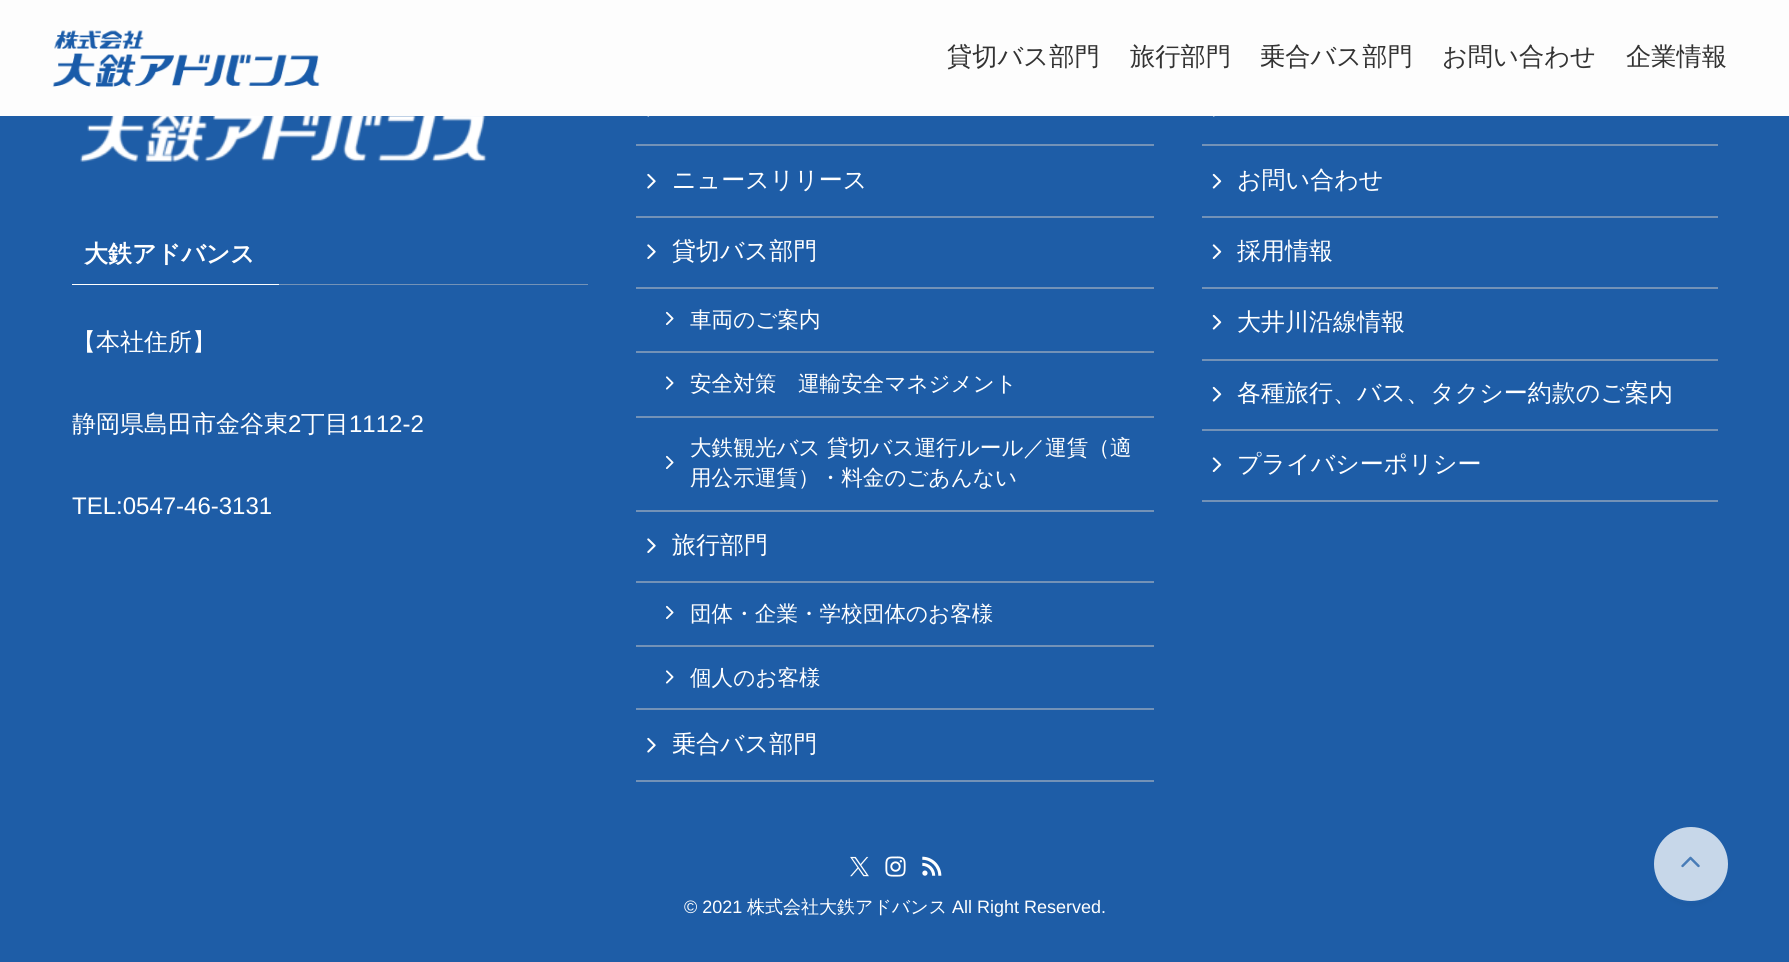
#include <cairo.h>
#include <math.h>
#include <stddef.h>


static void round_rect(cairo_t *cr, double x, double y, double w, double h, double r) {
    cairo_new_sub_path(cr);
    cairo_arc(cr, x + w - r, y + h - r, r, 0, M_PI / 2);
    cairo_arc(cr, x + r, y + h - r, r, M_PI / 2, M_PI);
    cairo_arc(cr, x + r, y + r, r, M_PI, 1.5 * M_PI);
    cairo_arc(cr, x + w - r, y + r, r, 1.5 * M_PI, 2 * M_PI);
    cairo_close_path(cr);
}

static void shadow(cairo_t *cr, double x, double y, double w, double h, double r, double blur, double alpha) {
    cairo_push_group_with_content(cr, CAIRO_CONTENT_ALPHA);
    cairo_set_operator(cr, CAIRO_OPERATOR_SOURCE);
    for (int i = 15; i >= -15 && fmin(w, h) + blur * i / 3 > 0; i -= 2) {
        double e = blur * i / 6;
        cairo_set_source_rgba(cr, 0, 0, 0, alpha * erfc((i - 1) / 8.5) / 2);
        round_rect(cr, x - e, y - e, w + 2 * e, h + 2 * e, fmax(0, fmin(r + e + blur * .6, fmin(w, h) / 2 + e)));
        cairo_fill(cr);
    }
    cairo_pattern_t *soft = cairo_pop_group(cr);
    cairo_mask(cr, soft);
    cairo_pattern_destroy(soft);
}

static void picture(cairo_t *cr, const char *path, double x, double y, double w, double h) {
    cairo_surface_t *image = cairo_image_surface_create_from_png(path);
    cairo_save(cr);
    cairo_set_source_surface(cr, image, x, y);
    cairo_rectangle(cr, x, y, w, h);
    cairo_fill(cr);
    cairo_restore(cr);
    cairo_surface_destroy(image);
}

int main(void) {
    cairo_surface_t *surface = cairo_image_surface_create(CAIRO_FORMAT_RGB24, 1789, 962);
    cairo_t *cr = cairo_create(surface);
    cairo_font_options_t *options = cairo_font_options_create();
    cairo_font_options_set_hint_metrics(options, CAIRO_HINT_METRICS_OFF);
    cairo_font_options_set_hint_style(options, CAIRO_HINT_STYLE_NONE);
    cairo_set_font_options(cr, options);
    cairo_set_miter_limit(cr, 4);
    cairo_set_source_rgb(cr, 0.118, 0.365, 0.655);
    cairo_paint(cr);
    cairo_set_source_rgb(cr, 0.992, 0.992, 0.992);
    cairo_rectangle(cr, 0, 0, 1789, 116);
    cairo_fill(cr);
    picture(cr, "img1.png", 52, 30, 268, 57);
    cairo_select_font_face(cr, "WenQuanYi Zen Hei Medium", CAIRO_FONT_SLANT_NORMAL, CAIRO_FONT_WEIGHT_NORMAL);
    cairo_set_font_size(cr, 25.25);
    cairo_set_source_rgb(cr, 0.2, 0.2, 0.2);
    cairo_move_to(cr, 947, 65);
    cairo_show_text(cr, "貸切バス部門");
    cairo_move_to(cr, 1130, 65);
    cairo_show_text(cr, "旅行部門");
    cairo_move_to(cr, 1260, 65);
    cairo_show_text(cr, "乗合バス部門");
    cairo_move_to(cr, 1442, 65);
    cairo_show_text(cr, "お問い合わせ");
    cairo_move_to(cr, 1626, 65);
    cairo_show_text(cr, "企業情報");
    picture(cr, "img2.png", 80, 116, 407, 46);
    cairo_select_font_face(cr, "WenQuanYi Zen Hei", CAIRO_FONT_SLANT_NORMAL, CAIRO_FONT_WEIGHT_BOLD);
    cairo_set_font_size(cr, 24);
    cairo_set_source_rgb(cr, 1, 1, 1);
    cairo_move_to(cr, 84, 262);
    cairo_show_text(cr, "大鉄アドバンス");
    cairo_rectangle(cr, 72, 284, 207, 1);
    cairo_fill(cr);
    cairo_set_source_rgb(cr, 0.451, 0.573, 0.718);
    cairo_rectangle(cr, 279, 284, 309, 1);
    cairo_fill(cr);
    cairo_select_font_face(cr, "WenQuanYi Zen Hei Medium", CAIRO_FONT_SLANT_NORMAL, CAIRO_FONT_WEIGHT_NORMAL);
    cairo_set_source_rgb(cr, 1, 1, 1);
    cairo_move_to(cr, 72, 350);
    cairo_show_text(cr, "【本社住所】");
    cairo_move_to(cr, 72, 432);
    cairo_show_text(cr, "静岡県島田市金谷東");
    cairo_select_font_face(cr, "Liberation Sans", CAIRO_FONT_SLANT_NORMAL, CAIRO_FONT_WEIGHT_NORMAL);
    cairo_move_to(cr, 288, 432);
    cairo_show_text(cr, "2");
    cairo_select_font_face(cr, "WenQuanYi Zen Hei Medium", CAIRO_FONT_SLANT_NORMAL, CAIRO_FONT_WEIGHT_NORMAL);
    cairo_move_to(cr, 301, 432);
    cairo_show_text(cr, "丁目");
    cairo_select_font_face(cr, "Liberation Sans", CAIRO_FONT_SLANT_NORMAL, CAIRO_FONT_WEIGHT_NORMAL);
    cairo_move_to(cr, 349, 432);
    cairo_show_text(cr, "1112-2");
    cairo_move_to(cr, 72, 514);
    cairo_show_text(cr, "TEL:0547-46-3131");
    cairo_set_source_rgb(cr, 0.451, 0.573, 0.718);
    cairo_rectangle(cr, 636, 144, 518, 2);
    cairo_fill(cr);
    picture(cr, "img3.png", 647, 116, 3, 1);
    cairo_rectangle(cr, 636, 216, 518, 2);
    cairo_fill(cr);
    picture(cr, "img4.png", 647, 173, 9, 16);
    cairo_select_font_face(cr, "WenQuanYi Zen Hei Medium", CAIRO_FONT_SLANT_NORMAL, CAIRO_FONT_WEIGHT_NORMAL);
    cairo_set_source_rgb(cr, 1, 1, 1);
    cairo_move_to(cr, 672, 188);
    cairo_show_text(cr, "ニュースリリース");
    cairo_set_source_rgb(cr, 0.451, 0.573, 0.718);
    cairo_rectangle(cr, 636, 287, 518, 2);
    cairo_fill(cr);
    picture(cr, "img5.png", 647, 244, 9, 15);
    cairo_set_source_rgb(cr, 1, 1, 1);
    cairo_move_to(cr, 672, 259);
    cairo_show_text(cr, "貸切バス部門");
    cairo_set_source_rgb(cr, 0.451, 0.573, 0.718);
    cairo_rectangle(cr, 636, 351, 518, 2);
    cairo_fill(cr);
    picture(cr, "img6.png", 666, 311, 8, 14);
    cairo_set_font_size(cr, 21.6);
    cairo_set_source_rgb(cr, 1, 1, 1);
    cairo_move_to(cr, 690, 327);
    cairo_show_text(cr, "車両のご案内");
    cairo_set_source_rgb(cr, 0.451, 0.573, 0.718);
    cairo_rectangle(cr, 636, 416, 518, 2);
    cairo_fill(cr);
    picture(cr, "img7.png", 666, 376, 8, 14);
    cairo_set_source_rgb(cr, 1, 1, 1);
    cairo_move_to(cr, 690, 391);
    cairo_show_text(cr, "安全対策　運輸安全マネジメント");
    cairo_set_source_rgb(cr, 0.451, 0.573, 0.718);
    cairo_rectangle(cr, 636, 510, 518, 2);
    cairo_fill(cr);
    cairo_set_source_rgb(cr, 1, 1, 1);
    cairo_move_to(cr, 690, 455);
    cairo_show_text(cr, "大鉄観光バス 貸切バス運行ルール／運賃（適");
    picture(cr, "img6.png", 666, 455, 8, 14);
    cairo_move_to(cr, 690, 485);
    cairo_show_text(cr, "用公示運賃）・料金のごあんない");
    cairo_set_source_rgb(cr, 0.451, 0.573, 0.718);
    cairo_rectangle(cr, 636, 581, 518, 2);
    cairo_fill(cr);
    picture(cr, "img5.png", 647, 538, 9, 15);
    cairo_set_font_size(cr, 24);
    cairo_set_source_rgb(cr, 1, 1, 1);
    cairo_move_to(cr, 672, 553);
    cairo_show_text(cr, "旅行部門");
    cairo_set_source_rgb(cr, 0.451, 0.573, 0.718);
    cairo_rectangle(cr, 636, 645, 518, 2);
    cairo_fill(cr);
    picture(cr, "img6.png", 666, 605, 8, 14);
    cairo_set_font_size(cr, 21.6);
    cairo_set_source_rgb(cr, 1, 1, 1);
    cairo_move_to(cr, 690, 621);
    cairo_show_text(cr, "団体・企業・学校団体のお客様");
    cairo_set_source_rgb(cr, 0.451, 0.573, 0.718);
    cairo_rectangle(cr, 636, 708, 518, 2);
    cairo_fill(cr);
    picture(cr, "img7.png", 666, 670, 8, 14);
    cairo_set_source_rgb(cr, 1, 1, 1);
    cairo_move_to(cr, 690, 685);
    cairo_show_text(cr, "個人のお客様");
    cairo_set_source_rgb(cr, 0.451, 0.573, 0.718);
    cairo_rectangle(cr, 636, 780, 518, 2);
    cairo_fill(cr);
    picture(cr, "img4.png", 647, 737, 9, 16);
    cairo_set_font_size(cr, 24);
    cairo_set_source_rgb(cr, 1, 1, 1);
    cairo_move_to(cr, 672, 752);
    cairo_show_text(cr, "乗合バス部門");
    cairo_set_source_rgb(cr, 0.451, 0.573, 0.718);
    cairo_rectangle(cr, 1202, 144, 516, 2);
    cairo_fill(cr);
    picture(cr, "img8.png", 1213, 116, 2, 1);
    cairo_rectangle(cr, 1202, 216, 516, 2);
    cairo_fill(cr);
    picture(cr, "img9.png", 1212, 173, 10, 16);
    cairo_set_source_rgb(cr, 1, 1, 1);
    cairo_move_to(cr, 1237, 188);
    cairo_show_text(cr, "お問い合わせ");
    cairo_set_source_rgb(cr, 0.451, 0.573, 0.718);
    cairo_rectangle(cr, 1202, 287, 516, 2);
    cairo_fill(cr);
    picture(cr, "img10.png", 1212, 244, 10, 15);
    cairo_set_source_rgb(cr, 1, 1, 1);
    cairo_move_to(cr, 1237, 259);
    cairo_show_text(cr, "採用情報");
    cairo_set_source_rgb(cr, 0.451, 0.573, 0.718);
    cairo_rectangle(cr, 1202, 359, 516, 2);
    cairo_fill(cr);
    picture(cr, "img9.png", 1212, 314, 10, 16);
    cairo_set_source_rgb(cr, 1, 1, 1);
    cairo_move_to(cr, 1237, 330);
    cairo_show_text(cr, "大井川沿線情報");
    cairo_set_source_rgb(cr, 0.451, 0.573, 0.718);
    cairo_rectangle(cr, 1202, 429, 516, 2);
    cairo_fill(cr);
    picture(cr, "img9.png", 1212, 386, 10, 16);
    cairo_set_source_rgb(cr, 1, 1, 1);
    cairo_move_to(cr, 1237, 401);
    cairo_show_text(cr, "各種旅行、バス、タクシー約款のご案内");
    cairo_set_source_rgb(cr, 0.451, 0.573, 0.718);
    cairo_rectangle(cr, 1202, 500, 516, 2);
    cairo_fill(cr);
    picture(cr, "img10.png", 1212, 457, 10, 15);
    cairo_set_source_rgb(cr, 1, 1, 1);
    cairo_move_to(cr, 1237, 472);
    cairo_show_text(cr, "プライバシーポリシー");
    picture(cr, "img11.png", 850, 856, 19, 21);
    picture(cr, "img12.png", 885, 856, 21, 21);
    picture(cr, "img13.png", 922, 856, 20, 20);
    cairo_select_font_face(cr, "Liberation Sans", CAIRO_FONT_SLANT_NORMAL, CAIRO_FONT_WEIGHT_NORMAL);
    cairo_set_font_size(cr, 18);
    cairo_move_to(cr, 684, 913);
    cairo_show_text(cr, "© 2021");
    cairo_select_font_face(cr, "WenQuanYi Zen Hei Medium", CAIRO_FONT_SLANT_NORMAL, CAIRO_FONT_WEIGHT_NORMAL);
    cairo_move_to(cr, 747, 913);
    cairo_show_text(cr, "株式会社大鉄アドバンス");
    cairo_select_font_face(cr, "Liberation Sans", CAIRO_FONT_SLANT_NORMAL, CAIRO_FONT_WEIGHT_NORMAL);
    cairo_move_to(cr, 952, 913);
    cairo_show_text(cr, "All Right Reserved.");
    cairo_set_source_rgb(cr, 0.031, 0.09, 0.165);
    shadow(cr, 1658, 837, 66, 66, 33, 3, 0.1);
    cairo_set_source_rgb(cr, 0.78, 0.843, 0.914);
    cairo_arc(cr, 1691, 864, 38, 0, 2 * M_PI);
    cairo_fill_preserve(cr);
    cairo_set_source_rgb(cr, 0.118, 0.365, 0.655);
    cairo_stroke(cr);
    picture(cr, "img14.png", 1681, 856, 19, 12);
    cairo_surface_write_to_png(surface, "page.png");
    cairo_font_options_destroy(options);
    cairo_destroy(cr);
    cairo_surface_destroy(surface);
    return 0;
}
